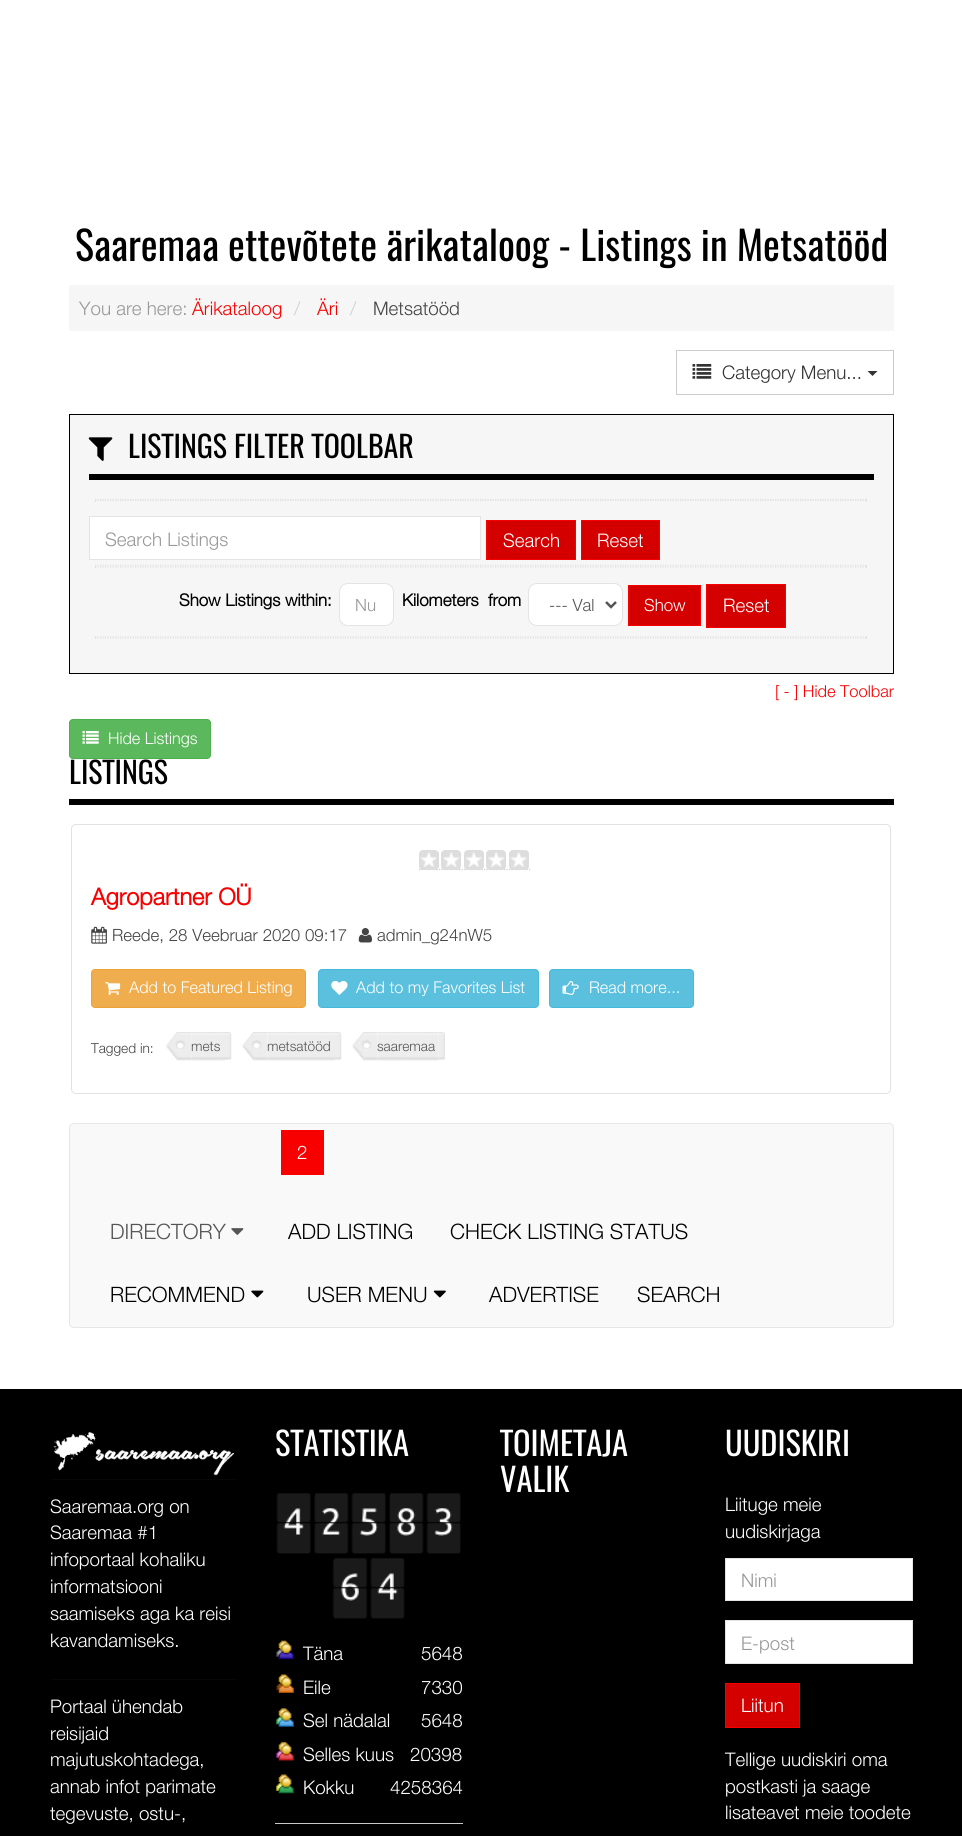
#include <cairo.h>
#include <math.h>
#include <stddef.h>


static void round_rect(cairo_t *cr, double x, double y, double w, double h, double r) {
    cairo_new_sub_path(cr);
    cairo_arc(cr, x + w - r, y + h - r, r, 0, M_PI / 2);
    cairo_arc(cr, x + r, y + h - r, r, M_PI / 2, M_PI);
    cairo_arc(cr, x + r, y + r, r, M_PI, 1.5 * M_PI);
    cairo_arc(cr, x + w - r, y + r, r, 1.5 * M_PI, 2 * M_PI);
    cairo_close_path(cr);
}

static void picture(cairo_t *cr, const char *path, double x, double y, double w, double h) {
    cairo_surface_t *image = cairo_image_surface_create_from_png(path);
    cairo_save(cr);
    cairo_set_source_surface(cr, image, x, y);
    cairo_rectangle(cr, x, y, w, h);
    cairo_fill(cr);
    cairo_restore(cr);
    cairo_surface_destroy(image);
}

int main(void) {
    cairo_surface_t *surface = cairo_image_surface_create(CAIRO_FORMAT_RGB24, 962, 1836);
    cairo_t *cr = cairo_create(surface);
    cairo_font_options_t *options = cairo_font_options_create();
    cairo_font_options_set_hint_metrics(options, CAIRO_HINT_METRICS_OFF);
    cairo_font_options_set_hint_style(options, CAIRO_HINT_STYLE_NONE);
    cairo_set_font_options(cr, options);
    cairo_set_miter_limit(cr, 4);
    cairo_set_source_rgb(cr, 1, 1, 1);
    cairo_paint(cr);
    cairo_select_font_face(cr, "Oswald", CAIRO_FONT_SLANT_NORMAL, CAIRO_FONT_WEIGHT_NORMAL);
    cairo_set_font_size(cr, 40);
    cairo_set_source_rgb(cr, 0, 0, 0);
    cairo_move_to(cr, 75, 261);
    cairo_show_text(cr, "Saaremaa ettevõtete ärikataloog - Listings in Metsatööd");
    cairo_set_source_rgb(cr, 0.961, 0.961, 0.961);
    cairo_rectangle(cr, 69, 285, 825, 46);
    cairo_fill(cr);
    cairo_select_font_face(cr, "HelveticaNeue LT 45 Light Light", CAIRO_FONT_SLANT_NORMAL, CAIRO_FONT_WEIGHT_NORMAL);
    cairo_set_font_size(cr, 18.75);
    cairo_set_source_rgb(cr, 0.6, 0.6, 0.6);
    cairo_move_to(cr, 79, 315);
    cairo_show_text(cr, "You are here:");
    cairo_set_source_rgb(cr, 0.973, 0, 0);
    cairo_move_to(cr, 192, 315);
    cairo_show_text(cr, "Ärikataloog");
    cairo_set_source_rgb(cr, 0.8, 0.8, 0.8);
    cairo_move_to(cr, 294, 315);
    cairo_show_text(cr, "/");
    cairo_set_source_rgb(cr, 0.973, 0, 0);
    cairo_move_to(cr, 317, 315);
    cairo_show_text(cr, "Äri");
    cairo_set_source_rgb(cr, 0.8, 0.8, 0.8);
    cairo_move_to(cr, 350, 315);
    cairo_show_text(cr, "/");
    cairo_set_source_rgb(cr, 0.267, 0.267, 0.267);
    cairo_move_to(cr, 373, 315);
    cairo_show_text(cr, "Metsatööd");
    cairo_rectangle(cr, 676.5, 350.5, 217, 44);
    cairo_set_source_rgb(cr, 0.8, 0.8, 0.8);
    cairo_set_line_width(cr, 1);
    cairo_stroke(cr);
    picture(cr, "img1.png", 692, 364, 20, 15);
    cairo_set_source_rgb(cr, 0.2, 0.2, 0.2);
    cairo_move_to(cr, 722, 379);
    cairo_show_text(cr, "Category Menu...");
    cairo_new_path(cr);
    cairo_move_to(cr, 867.5, 371);
    cairo_line_to(cr, 877.5, 371);
    cairo_line_to(cr, 872.5, 376);
    cairo_close_path(cr);
    cairo_fill(cr);
    cairo_set_source_rgb(cr, 0.961, 0.961, 0.961);
    cairo_rectangle(cr, 69.5, 414.5, 824, 259);
    cairo_fill_preserve(cr);
    cairo_set_source_rgb(cr, 0, 0, 0);
    cairo_stroke(cr);
    cairo_rectangle(cr, 89, 474, 785, 6);
    cairo_fill(cr);
    picture(cr, "img2.png", 88, 437, 25, 24);
    cairo_select_font_face(cr, "Oswald", CAIRO_FONT_SLANT_NORMAL, CAIRO_FONT_WEIGHT_NORMAL);
    cairo_set_font_size(cr, 30);
    cairo_move_to(cr, 128, 458);
    cairo_show_text(cr, "LISTINGS FILTER TOOLBAR");
    cairo_new_path(cr);
    cairo_move_to(cr, 95, 499.5);
    cairo_line_to(cr, 867.5, 499.5);
    cairo_set_source_rgb(cr, 0.882, 0.886, 0.89);
    cairo_set_line_width(cr, 1.2);
    cairo_set_dash(cr, (double[]){1.25, 1.25}, 2, 0);
    cairo_stroke(cr);
    cairo_rectangle(cr, 866, 499, 1, 3);
    cairo_fill(cr);
    cairo_new_path(cr);
    cairo_move_to(cr, 95, 500.5);
    cairo_line_to(cr, 867.5, 500.5);
    cairo_stroke(cr);
    cairo_rectangle(cr, 95, 499, 1, 3);
    cairo_fill(cr);
    cairo_set_source_rgb(cr, 1, 1, 1);
    cairo_rectangle(cr, 89.5, 516.5, 391, 43);
    cairo_fill_preserve(cr);
    cairo_set_source_rgb(cr, 0.894, 0.894, 0.894);
    cairo_set_line_width(cr, 1);
    cairo_set_dash(cr, NULL, 0, 0);
    cairo_stroke(cr);
    cairo_select_font_face(cr, "HelveticaNeue LT 45 Light Light", CAIRO_FONT_SLANT_NORMAL, CAIRO_FONT_WEIGHT_NORMAL);
    cairo_set_font_size(cr, 18.75);
    cairo_set_source_rgb(cr, 0.6, 0.6, 0.6);
    cairo_move_to(cr, 105, 546);
    cairo_show_text(cr, "Search Listings");
    cairo_set_source_rgb(cr, 0.831, 0, 0);
    cairo_rectangle(cr, 486.5, 520.5, 89, 39);
    cairo_fill_preserve(cr);
    cairo_set_source_rgb(cr, 0.973, 0, 0);
    cairo_stroke(cr);
    cairo_set_source_rgb(cr, 1, 1, 1);
    cairo_move_to(cr, 503, 547);
    cairo_show_text(cr, "Search");
    cairo_set_source_rgb(cr, 0.831, 0, 0);
    cairo_rectangle(cr, 581.5, 520.5, 78, 39);
    cairo_fill_preserve(cr);
    cairo_set_source_rgb(cr, 0.973, 0, 0);
    cairo_stroke(cr);
    cairo_set_source_rgb(cr, 1, 1, 1);
    cairo_move_to(cr, 597, 547);
    cairo_show_text(cr, "Reset");
    cairo_new_path(cr);
    cairo_move_to(cr, 95, 565.5);
    cairo_line_to(cr, 867.5, 565.5);
    cairo_set_source_rgb(cr, 0.882, 0.886, 0.89);
    cairo_set_line_width(cr, 1.2);
    cairo_set_dash(cr, (double[]){1.25, 1.25}, 2, 0);
    cairo_stroke(cr);
    cairo_rectangle(cr, 866, 565, 1, 3);
    cairo_fill(cr);
    cairo_new_path(cr);
    cairo_move_to(cr, 95, 567);
    cairo_line_to(cr, 867.5, 567);
    cairo_stroke(cr);
    cairo_rectangle(cr, 95, 565, 1, 3);
    cairo_fill(cr);
    cairo_select_font_face(cr, "HelveticaNeue LT 45 Light", CAIRO_FONT_SLANT_NORMAL, CAIRO_FONT_WEIGHT_BOLD);
    cairo_set_font_size(cr, 16.9);
    cairo_set_source_rgb(cr, 0, 0, 0);
    cairo_move_to(cr, 179, 606);
    cairo_show_text(cr, "Show Listings within:");
    cairo_set_source_rgb(cr, 1, 1, 1);
    round_rect(cr, 339.5, 583.5, 54, 42, 8.5);
    cairo_fill_preserve(cr);
    cairo_set_source_rgb(cr, 0.894, 0.894, 0.894);
    cairo_set_line_width(cr, 1);
    cairo_set_dash(cr, NULL, 0, 0);
    cairo_stroke(cr);
    cairo_select_font_face(cr, "HelveticaNeue LT 45 Light Light", CAIRO_FONT_SLANT_NORMAL, CAIRO_FONT_WEIGHT_NORMAL);
    cairo_set_source_rgb(cr, 0.6, 0.6, 0.6);
    cairo_move_to(cr, 355, 611);
    cairo_show_text(cr, "Nu");
    cairo_select_font_face(cr, "HelveticaNeue LT 45 Light", CAIRO_FONT_SLANT_NORMAL, CAIRO_FONT_WEIGHT_BOLD);
    cairo_set_source_rgb(cr, 0, 0, 0);
    cairo_move_to(cr, 402, 606);
    cairo_show_text(cr, "Kilometers");
    cairo_move_to(cr, 488, 606);
    cairo_show_text(cr, "from");
    cairo_set_source_rgb(cr, 1, 1, 1);
    round_rect(cr, 528.5, 583.5, 94, 42, 8.5);
    cairo_fill_preserve(cr);
    cairo_set_source_rgb(cr, 0.894, 0.894, 0.894);
    cairo_stroke(cr);
    cairo_new_path(cr);
    cairo_move_to(cr, 606, 602);
    cairo_line_to(cr, 611, 607);
    cairo_line_to(cr, 616, 602);
    cairo_set_source_rgb(cr, 0.333, 0.333, 0.333);
    cairo_set_line_width(cr, 2.5);
    cairo_stroke(cr);
    cairo_select_font_face(cr, "HelveticaNeue LT 45 Light Light", CAIRO_FONT_SLANT_NORMAL, CAIRO_FONT_WEIGHT_NORMAL);
    cairo_move_to(cr, 549, 611);
    cairo_show_text(cr, "--- Val");
    cairo_set_source_rgb(cr, 0.831, 0, 0);
    cairo_rectangle(cr, 628.5, 585.5, 72, 40);
    cairo_fill_preserve(cr);
    cairo_set_source_rgb(cr, 0.973, 0, 0);
    cairo_set_line_width(cr, 1);
    cairo_stroke(cr);
    cairo_set_source_rgb(cr, 1, 1, 1);
    cairo_move_to(cr, 644, 611);
    cairo_show_text(cr, "Show");
    cairo_set_source_rgb(cr, 0.831, 0, 0);
    cairo_rectangle(cr, 706.5, 584.5, 79, 43);
    cairo_fill_preserve(cr);
    cairo_set_source_rgb(cr, 0.973, 0, 0);
    cairo_stroke(cr);
    cairo_set_font_size(cr, 18.75);
    cairo_set_source_rgb(cr, 1, 1, 1);
    cairo_move_to(cr, 723, 612);
    cairo_show_text(cr, "Reset");
    cairo_new_path(cr);
    cairo_move_to(cr, 95, 637);
    cairo_line_to(cr, 867.5, 637);
    cairo_set_source_rgb(cr, 0.882, 0.886, 0.89);
    cairo_set_line_width(cr, 1.2);
    cairo_set_dash(cr, (double[]){1.25, 1.25}, 2, 0);
    cairo_stroke(cr);
    cairo_rectangle(cr, 866, 636, 1, 3);
    cairo_fill(cr);
    cairo_new_path(cr);
    cairo_move_to(cr, 95, 638);
    cairo_line_to(cr, 867.5, 638);
    cairo_stroke(cr);
    cairo_rectangle(cr, 95, 636, 1, 3);
    cairo_fill(cr);
    cairo_set_font_size(cr, 16.5);
    cairo_set_source_rgb(cr, 0.973, 0, 0);
    cairo_move_to(cr, 775, 697);
    cairo_show_text(cr, "[ - ] Hide Toolbar");
    cairo_set_source_rgb(cr, 0.361, 0.722, 0.361);
    round_rect(cr, 69.5, 719.5, 141, 39, 3.5);
    cairo_fill_preserve(cr);
    cairo_set_source_rgb(cr, 0.298, 0.682, 0.298);
    cairo_set_line_width(cr, 1);
    cairo_set_dash(cr, NULL, 0, 0);
    cairo_stroke(cr);
    picture(cr, "img3.png", 82, 731, 17, 13);
    cairo_set_font_size(cr, 16.25);
    cairo_set_source_rgb(cr, 1, 1, 1);
    cairo_move_to(cr, 108, 744);
    cairo_show_text(cr, "Hide Listings");
    cairo_set_source_rgb(cr, 0, 0, 0);
    cairo_rectangle(cr, 69, 799, 825, 6);
    cairo_fill(cr);
    cairo_select_font_face(cr, "Oswald", CAIRO_FONT_SLANT_NORMAL, CAIRO_FONT_WEIGHT_NORMAL);
    cairo_set_font_size(cr, 30);
    cairo_move_to(cr, 69, 784);
    cairo_show_text(cr, "LISTINGS");
    round_rect(cr, 71.5, 824.5, 819, 269, 4.5);
    cairo_set_source_rgb(cr, 0.882, 0.886, 0.89);
    cairo_stroke(cr);
    cairo_new_path(cr);
    cairo_move_to(cr, 419, 869.5);
    cairo_line_to(cr, 531, 869.5);
    cairo_set_source_rgb(cr, 0.8, 0.8, 0.8);
    cairo_set_line_width(cr, 1.2);
    cairo_set_dash(cr, (double[]){1.25, 1.25}, 2, 0);
    cairo_stroke(cr);
    cairo_set_source_rgb(cr, 0.867, 0.867, 0.867);
    round_rect(cr, 419, 850, 20, 20, 4);
    cairo_fill(cr);
    picture(cr, "img4.png", 420, 852, 17, 15);
    round_rect(cr, 441, 850, 20, 20, 4);
    cairo_fill(cr);
    picture(cr, "img5.png", 443, 852, 17, 15);
    round_rect(cr, 464, 850, 20, 20, 4);
    cairo_fill(cr);
    picture(cr, "img4.png", 465, 852, 17, 15);
    round_rect(cr, 486, 850, 20, 20, 4);
    cairo_fill(cr);
    picture(cr, "img5.png", 488, 852, 17, 15);
    round_rect(cr, 509, 850, 20, 20, 4);
    cairo_fill(cr);
    picture(cr, "img6.png", 510, 852, 17, 15);
    cairo_select_font_face(cr, "HelveticaNeue LT 45 Light", CAIRO_FONT_SLANT_NORMAL, CAIRO_FONT_WEIGHT_BOLD);
    cairo_set_font_size(cr, 23.5);
    cairo_set_source_rgb(cr, 0.973, 0, 0);
    cairo_move_to(cr, 91, 905);
    cairo_show_text(cr, "Agropartner OÜ");
    picture(cr, "img7.png", 91, 926, 16, 18);
    cairo_select_font_face(cr, "HelveticaNeue LT 45 Light Light", CAIRO_FONT_SLANT_NORMAL, CAIRO_FONT_WEIGHT_NORMAL);
    cairo_set_font_size(cr, 16.9);
    cairo_set_source_rgb(cr, 0.267, 0.267, 0.267);
    cairo_move_to(cr, 112, 941);
    cairo_show_text(cr, "Reede, 28 Veebruar 2020 09:17");
    picture(cr, "img8.png", 358, 928, 14, 15);
    cairo_move_to(cr, 377, 941);
    cairo_show_text(cr, "admin_g24nW5");
    cairo_set_source_rgb(cr, 0.941, 0.678, 0.306);
    round_rect(cr, 91.5, 969.5, 214, 38, 3.5);
    cairo_fill_preserve(cr);
    cairo_set_source_rgb(cr, 0.933, 0.635, 0.212);
    cairo_set_line_width(cr, 1);
    cairo_set_dash(cr, NULL, 0, 0);
    cairo_stroke(cr);
    picture(cr, "img9.png", 105, 982, 16, 13);
    cairo_set_font_size(cr, 16.25);
    cairo_set_source_rgb(cr, 1, 1, 1);
    cairo_move_to(cr, 129, 993);
    cairo_show_text(cr, "Add to Featured Listing");
    cairo_set_source_rgb(cr, 0.357, 0.753, 0.871);
    round_rect(cr, 318.5, 969.5, 220, 38, 3.5);
    cairo_fill_preserve(cr);
    cairo_set_source_rgb(cr, 0.275, 0.722, 0.855);
    cairo_stroke(cr);
    picture(cr, "img10.png", 331, 981, 17, 14);
    cairo_set_source_rgb(cr, 1, 1, 1);
    cairo_move_to(cr, 356, 993);
    cairo_show_text(cr, "Add to my Favorites List");
    cairo_set_source_rgb(cr, 0.357, 0.753, 0.871);
    round_rect(cr, 549.5, 969.5, 144, 38, 3.5);
    cairo_fill_preserve(cr);
    cairo_set_source_rgb(cr, 0.275, 0.722, 0.855);
    cairo_stroke(cr);
    picture(cr, "img11.png", 562, 981, 17, 14);
    cairo_set_source_rgb(cr, 1, 1, 1);
    cairo_move_to(cr, 589, 993);
    cairo_show_text(cr, "Read more...");
    cairo_set_font_size(cr, 13.75);
    cairo_set_source_rgb(cr, 0.267, 0.267, 0.267);
    cairo_move_to(cr, 91, 1053);
    cairo_show_text(cr, "Tagged in:");
    picture(cr, "img12.png", 166, 1032, 26, 29);
    picture(cr, "img13.png", 191, 1032, 34, 29);
    cairo_set_source_rgb(cr, 0.333, 0.333, 0.333);
    cairo_move_to(cr, 191, 1051);
    cairo_show_text(cr, "mets");
    picture(cr, "img14.png", 225, 1032, 7, 28);
    picture(cr, "img15.png", 242, 1032, 26, 29);
    picture(cr, "img16.png", 267, 1032, 68, 29);
    cairo_move_to(cr, 267, 1051);
    cairo_show_text(cr, "metsatööd");
    picture(cr, "img14.png", 335, 1032, 7, 28);
    picture(cr, "img17.png", 352, 1032, 26, 29);
    picture(cr, "img18.png", 377, 1032, 62, 29);
    cairo_move_to(cr, 377, 1051);
    cairo_show_text(cr, "saaremaa");
    picture(cr, "img19.png", 439, 1032, 6, 28);
    cairo_set_source_rgb(cr, 0.973, 0.973, 0.973);
    round_rect(cr, 69.5, 1123.5, 824, 204, 4.5);
    cairo_fill_preserve(cr);
    cairo_set_source_rgb(cr, 0.906, 0.906, 0.906);
    cairo_stroke(cr);
    cairo_set_source_rgb(cr, 0.973, 0, 0);
    cairo_rectangle(cr, 281, 1130, 43, 45);
    cairo_fill(cr);
    cairo_set_font_size(cr, 18.75);
    cairo_set_source_rgb(cr, 1, 1, 1);
    cairo_move_to(cr, 297, 1159);
    cairo_show_text(cr, "2");
    cairo_set_font_size(cr, 21.25);
    cairo_set_source_rgb(cr, 0.333, 0.333, 0.333);
    cairo_move_to(cr, 110, 1239);
    cairo_show_text(cr, "DIRECTORY");
    picture(cr, "img20.png", 231, 1228, 13, 7);
    cairo_set_source_rgb(cr, 0, 0, 0);
    cairo_move_to(cr, 288, 1239);
    cairo_show_text(cr, "ADD LISTING");
    cairo_move_to(cr, 450, 1239);
    cairo_show_text(cr, "CHECK LISTING STATUS");
    cairo_move_to(cr, 110, 1302);
    cairo_show_text(cr, "RECOMMEND");
    picture(cr, "img21.png", 251, 1290, 13, 8);
    cairo_move_to(cr, 307, 1302);
    cairo_show_text(cr, "USER MENU");
    picture(cr, "img22.png", 433, 1290, 13, 8);
    cairo_move_to(cr, 489, 1302);
    cairo_show_text(cr, "ADVERTISE");
    cairo_move_to(cr, 637, 1302);
    cairo_show_text(cr, "SEARCH");
    cairo_rectangle(cr, 0, 1389, 962, 447);
    cairo_fill(cr);
    cairo_set_source_rgb(cr, 0.031, 0.031, 0.031);
    cairo_rectangle(cr, 50, 1479, 188, 1);
    cairo_fill(cr);
    picture(cr, "img23.png", 53, 1432, 182, 44);
    cairo_rectangle(cr, 50, 1679, 188, 1);
    cairo_fill(cr);
    cairo_set_font_size(cr, 18.75);
    cairo_set_source_rgb(cr, 1, 1, 1);
    cairo_move_to(cr, 50, 1513);
    cairo_show_text(cr, "Saaremaa.org on");
    cairo_move_to(cr, 50, 1539);
    cairo_show_text(cr, "Saaremaa #1");
    cairo_move_to(cr, 50, 1566);
    cairo_show_text(cr, "infoportaal kohaliku");
    cairo_move_to(cr, 50, 1593);
    cairo_show_text(cr, "informatsiooni");
    cairo_move_to(cr, 50, 1620);
    cairo_show_text(cr, "saamiseks aga ka reisi");
    cairo_move_to(cr, 50, 1647);
    cairo_show_text(cr, "kavandamiseks.");
    cairo_move_to(cr, 50, 1713);
    cairo_show_text(cr, "Portaal ühendab");
    cairo_move_to(cr, 50, 1740);
    cairo_show_text(cr, "reisijaid");
    cairo_move_to(cr, 50, 1766);
    cairo_show_text(cr, "majutuskohtadega,");
    cairo_move_to(cr, 50, 1793);
    cairo_show_text(cr, "annab infot parimate");
    cairo_move_to(cr, 50, 1820);
    cairo_show_text(cr, "tegevuste, ostu-,");
    cairo_select_font_face(cr, "Oswald", CAIRO_FONT_SLANT_NORMAL, CAIRO_FONT_WEIGHT_NORMAL);
    cairo_set_font_size(cr, 32.5);
    cairo_move_to(cr, 275, 1456);
    cairo_show_text(cr, "STATISTIKA");
    picture(cr, "img24.png", 276, 1493, 35, 61);
    picture(cr, "img25.png", 314, 1493, 35, 61);
    picture(cr, "img26.png", 351, 1493, 35, 61);
    picture(cr, "img27.png", 389, 1493, 35, 61);
    picture(cr, "img28.png", 426, 1493, 35, 61);
    picture(cr, "img29.png", 332, 1558, 36, 61);
    picture(cr, "img30.png", 370, 1558, 35, 61);
    picture(cr, "img31.png", 276, 1640, 18, 20);
    cairo_select_font_face(cr, "HelveticaNeue LT 45 Light Light", CAIRO_FONT_SLANT_NORMAL, CAIRO_FONT_WEIGHT_NORMAL);
    cairo_set_font_size(cr, 18.75);
    cairo_move_to(cr, 303, 1660);
    cairo_show_text(cr, "Täna");
    cairo_move_to(cr, 421, 1660);
    cairo_show_text(cr, "5648");
    picture(cr, "img32.png", 276, 1674, 18, 19);
    cairo_move_to(cr, 303, 1694);
    cairo_show_text(cr, "Eile");
    cairo_move_to(cr, 421, 1694);
    cairo_show_text(cr, "7330");
    picture(cr, "img33.png", 276, 1708, 18, 19);
    cairo_move_to(cr, 303, 1727);
    cairo_show_text(cr, "Sel nädalal");
    cairo_move_to(cr, 421, 1727);
    cairo_show_text(cr, "5648");
    picture(cr, "img34.png", 276, 1741, 18, 20);
    cairo_move_to(cr, 303, 1761);
    cairo_show_text(cr, "Selles kuus");
    cairo_move_to(cr, 410, 1761);
    cairo_show_text(cr, "20398");
    picture(cr, "img35.png", 276, 1774, 18, 20);
    cairo_move_to(cr, 303, 1794);
    cairo_show_text(cr, "Kokku");
    cairo_move_to(cr, 390, 1794);
    cairo_show_text(cr, "4258364");
    cairo_set_source_rgb(cr, 0.784, 0.784, 0.784);
    cairo_rectangle(cr, 275, 1823, 188, 1);
    cairo_fill(cr);
    cairo_select_font_face(cr, "Oswald", CAIRO_FONT_SLANT_NORMAL, CAIRO_FONT_WEIGHT_NORMAL);
    cairo_set_font_size(cr, 32.5);
    cairo_set_source_rgb(cr, 1, 1, 1);
    cairo_move_to(cr, 500, 1456);
    cairo_show_text(cr, "TOIMETAJA");
    cairo_move_to(cr, 500, 1492);
    cairo_show_text(cr, "VALIK");
    cairo_move_to(cr, 725, 1456);
    cairo_show_text(cr, "UUDISKIRI");
    cairo_select_font_face(cr, "HelveticaNeue LT 45 Light Light", CAIRO_FONT_SLANT_NORMAL, CAIRO_FONT_WEIGHT_NORMAL);
    cairo_set_font_size(cr, 18.75);
    cairo_move_to(cr, 725, 1511);
    cairo_show_text(cr, "Liituge meie");
    cairo_move_to(cr, 725, 1538);
    cairo_show_text(cr, "uudiskirjaga");
    cairo_rectangle(cr, 725.5, 1558.5, 187, 42);
    cairo_fill_preserve(cr);
    cairo_set_source_rgb(cr, 0.894, 0.894, 0.894);
    cairo_stroke(cr);
    cairo_set_source_rgb(cr, 0.6, 0.6, 0.6);
    cairo_move_to(cr, 741, 1587);
    cairo_show_text(cr, "Nimi");
    cairo_set_source_rgb(cr, 1, 1, 1);
    cairo_rectangle(cr, 725.5, 1620.5, 187, 43);
    cairo_fill_preserve(cr);
    cairo_set_source_rgb(cr, 0.894, 0.894, 0.894);
    cairo_stroke(cr);
    cairo_set_source_rgb(cr, 0.6, 0.6, 0.6);
    cairo_move_to(cr, 741, 1650);
    cairo_show_text(cr, "E-post");
    cairo_set_source_rgb(cr, 0.831, 0, 0);
    cairo_rectangle(cr, 725.5, 1683.5, 74, 44);
    cairo_fill_preserve(cr);
    cairo_set_source_rgb(cr, 0.973, 0, 0);
    cairo_stroke(cr);
    cairo_set_source_rgb(cr, 1, 1, 1);
    cairo_move_to(cr, 741, 1712);
    cairo_show_text(cr, "Liitun");
    cairo_move_to(cr, 725, 1766);
    cairo_show_text(cr, "Tellige uudiskiri oma");
    cairo_move_to(cr, 725, 1793);
    cairo_show_text(cr, "postkasti ja saage");
    cairo_move_to(cr, 725, 1819);
    cairo_show_text(cr, "lisateavet meie toodete");
    cairo_surface_write_to_png(surface, "page.png");
    cairo_font_options_destroy(options);
    cairo_destroy(cr);
    cairo_surface_destroy(surface);
    return 0;
}
